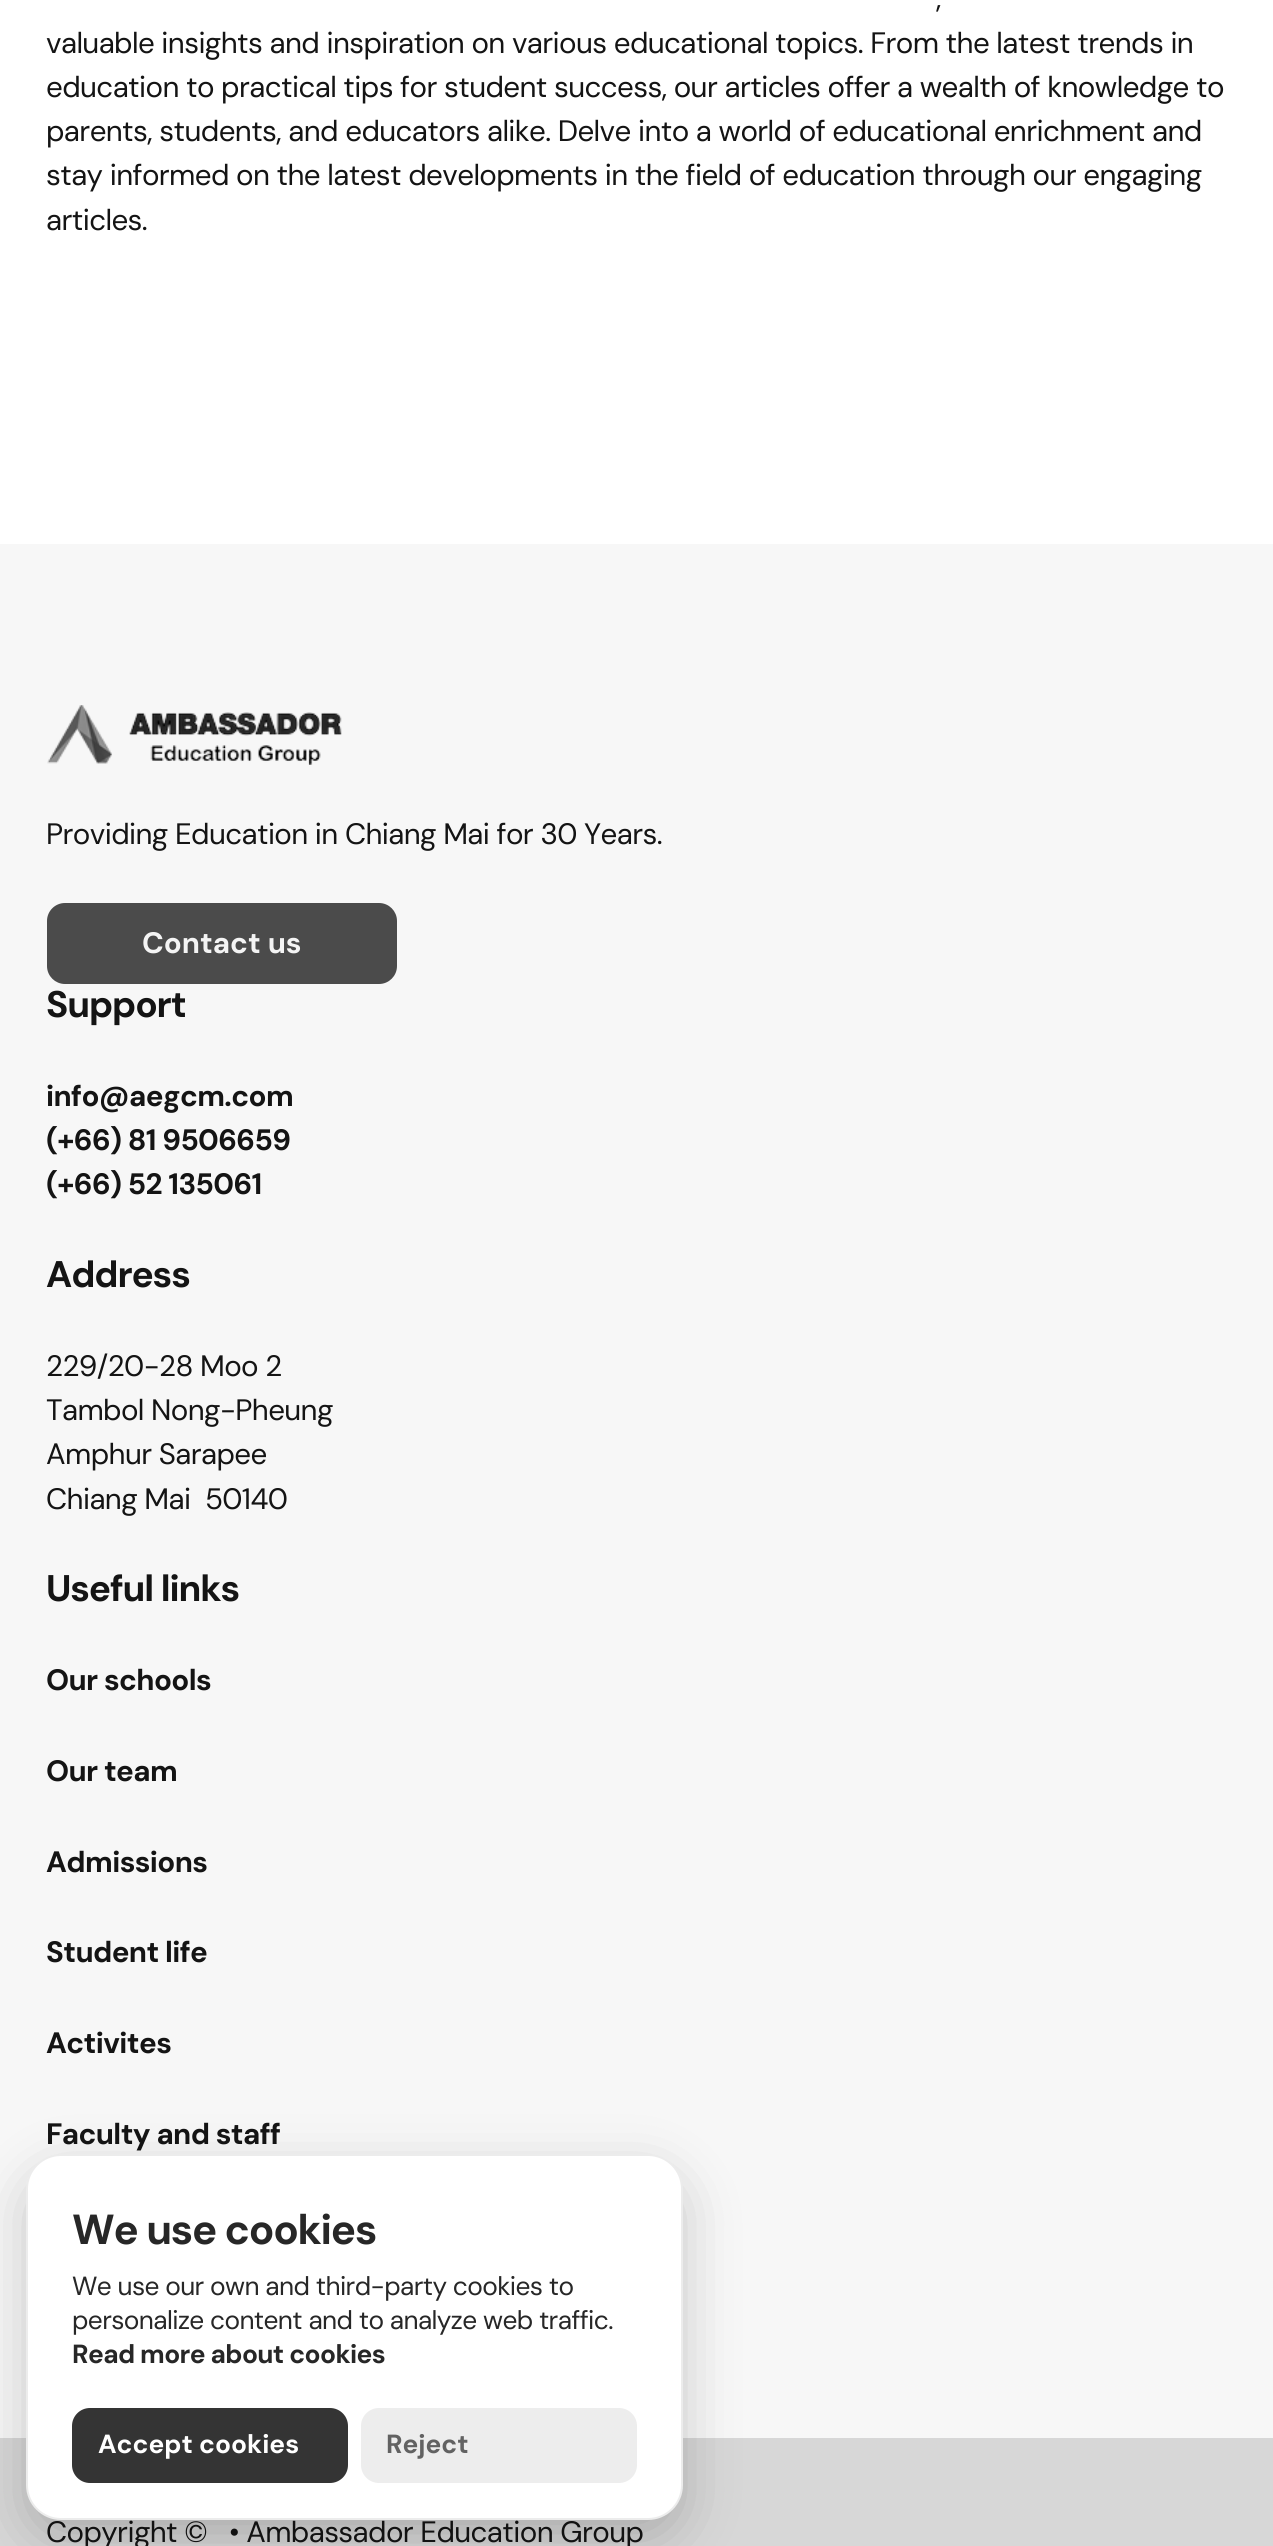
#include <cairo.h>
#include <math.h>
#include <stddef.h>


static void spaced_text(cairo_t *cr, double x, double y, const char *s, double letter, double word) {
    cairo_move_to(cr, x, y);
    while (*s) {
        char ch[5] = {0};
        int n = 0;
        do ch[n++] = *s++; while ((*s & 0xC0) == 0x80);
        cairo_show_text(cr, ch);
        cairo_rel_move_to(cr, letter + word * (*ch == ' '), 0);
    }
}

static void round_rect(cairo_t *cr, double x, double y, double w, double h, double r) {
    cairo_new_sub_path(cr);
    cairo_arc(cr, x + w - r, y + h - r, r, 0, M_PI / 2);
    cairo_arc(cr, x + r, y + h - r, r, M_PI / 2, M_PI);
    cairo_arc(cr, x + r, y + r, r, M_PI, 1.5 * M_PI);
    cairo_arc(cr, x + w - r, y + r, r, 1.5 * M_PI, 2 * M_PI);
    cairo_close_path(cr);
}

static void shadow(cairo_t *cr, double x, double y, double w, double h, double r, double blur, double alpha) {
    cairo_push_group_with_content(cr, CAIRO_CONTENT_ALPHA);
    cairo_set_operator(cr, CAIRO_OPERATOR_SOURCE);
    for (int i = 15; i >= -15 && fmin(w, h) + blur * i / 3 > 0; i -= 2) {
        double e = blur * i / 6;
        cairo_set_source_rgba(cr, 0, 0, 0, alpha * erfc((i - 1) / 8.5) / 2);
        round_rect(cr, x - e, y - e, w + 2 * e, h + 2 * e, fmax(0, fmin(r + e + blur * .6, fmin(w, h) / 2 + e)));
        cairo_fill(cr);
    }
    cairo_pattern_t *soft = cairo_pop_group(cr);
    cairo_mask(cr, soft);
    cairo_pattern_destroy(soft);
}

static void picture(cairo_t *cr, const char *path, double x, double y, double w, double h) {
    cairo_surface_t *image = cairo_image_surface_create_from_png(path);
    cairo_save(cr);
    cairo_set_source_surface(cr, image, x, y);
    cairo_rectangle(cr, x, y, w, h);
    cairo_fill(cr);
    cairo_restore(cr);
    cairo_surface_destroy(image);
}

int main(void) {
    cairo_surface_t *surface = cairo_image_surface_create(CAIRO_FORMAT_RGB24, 1273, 2546);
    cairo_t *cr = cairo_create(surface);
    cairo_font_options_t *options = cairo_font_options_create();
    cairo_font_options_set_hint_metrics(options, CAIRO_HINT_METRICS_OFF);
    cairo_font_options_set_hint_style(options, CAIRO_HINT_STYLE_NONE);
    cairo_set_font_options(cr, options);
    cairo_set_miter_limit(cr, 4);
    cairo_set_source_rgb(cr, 1, 1, 1);
    cairo_paint(cr);
    cairo_select_font_face(cr, "DM Sans", CAIRO_FONT_SLANT_NORMAL, CAIRO_FONT_WEIGHT_NORMAL);
    cairo_set_font_size(cr, 29.5);
    cairo_set_source_rgb(cr, 0.082, 0.082, 0.082);
    spaced_text(cr, 936, 8, ",", -0.6, 0);
    spaced_text(cr, 46, 53, "valuable insights and inspiration on various educational topics. From the latest trends in", -0.6, 0);
    spaced_text(cr, 46, 97, "education to practical tips for student success, our articles offer a wealth of knowledge to", -0.6, 0);
    spaced_text(cr, 46, 141, "parents, students, and educators alike. Delve into a world of educational enrichment and", -0.6, 0);
    spaced_text(cr, 46, 185, "stay informed on the latest developments in the field of education through our engaging", -0.6, 0);
    spaced_text(cr, 46, 230, "articles.", -0.6, 0);
    cairo_set_source_rgb(cr, 0.965, 0.965, 0.965);
    cairo_rectangle(cr, 0, 544, 1273, 1894);
    cairo_fill(cr);
    picture(cr, "img1.png", 47, 705, 295, 60);
    cairo_set_source_rgb(cr, 0.082, 0.082, 0.082);
    spaced_text(cr, 46, 844, "Providing Education in Chiang Mai for 30 Years.", -0.6, 0);
    cairo_set_source_rgb(cr, 0.294, 0.294, 0.294);
    round_rect(cr, 49, 905, 346, 77, 16);
    cairo_fill_preserve(cr);
    cairo_set_line_width(cr, 4);
    cairo_stroke(cr);
    cairo_select_font_face(cr, "DM Sans", CAIRO_FONT_SLANT_NORMAL, CAIRO_FONT_WEIGHT_BOLD);
    cairo_set_source_rgb(cr, 0.957, 0.957, 0.957);
    cairo_move_to(cr, 142, 953);
    cairo_show_text(cr, "Contact us");
    cairo_set_font_size(cr, 37);
    cairo_set_source_rgb(cr, 0.082, 0.082, 0.082);
    spaced_text(cr, 46, 1017, "Support", -1.1, 0);
    cairo_set_font_size(cr, 29.5);
    spaced_text(cr, 46, 1106, "info@aegcm.com", -0.6, 0);
    spaced_text(cr, 46, 1150, "(+66) 81 9506659", -0.6, 0);
    spaced_text(cr, 46, 1194, "(+66) 52 135061", -0.6, 0);
    cairo_set_font_size(cr, 37);
    spaced_text(cr, 46, 1287, "Address", -1.1, 0);
    cairo_select_font_face(cr, "DM Sans", CAIRO_FONT_SLANT_NORMAL, CAIRO_FONT_WEIGHT_NORMAL);
    cairo_set_font_size(cr, 29.5);
    spaced_text(cr, 46, 1376, "229/20-28 Moo 2", -0.6, 0);
    spaced_text(cr, 46, 1420, "Tambol Nong-Pheung", -0.6, 0);
    spaced_text(cr, 46, 1464, "Amphur Sarapee", -0.6, 0);
    spaced_text(cr, 46, 1509, "Chiang Mai  50140", -0.6, 0);
    cairo_select_font_face(cr, "DM Sans", CAIRO_FONT_SLANT_NORMAL, CAIRO_FONT_WEIGHT_BOLD);
    cairo_set_font_size(cr, 37);
    spaced_text(cr, 46, 1601, "Useful links", -1.1, 0);
    cairo_set_font_size(cr, 29.5);
    spaced_text(cr, 46, 1690, "Our schools", -0.6, 0);
    spaced_text(cr, 46, 1781, "Our team", -0.6, 0);
    spaced_text(cr, 46, 1872, "Admissions", -0.6, 0);
    spaced_text(cr, 46, 1962, "Student life", -0.6, 0);
    spaced_text(cr, 46, 2053, "Activites", -0.6, 0);
    spaced_text(cr, 46, 2144, "Faculty and staff", -0.6, 0);
    cairo_set_source_rgb(cr, 0.843, 0.843, 0.843);
    cairo_rectangle(cr, 0, 2438, 1273, 108);
    cairo_fill(cr);
    cairo_select_font_face(cr, "DM Sans", CAIRO_FONT_SLANT_NORMAL, CAIRO_FONT_WEIGHT_NORMAL);
    cairo_set_source_rgb(cr, 0.082, 0.082, 0.082);
    spaced_text(cr, 46, 2542, "Copyright ©   • Ambassador Education Group", -0.6, 0);
    cairo_set_source_rgb(cr, 0, 0, 0);
    shadow(cr, 26, 2174, 657, 365, 35, 27.5, 0.2);
    cairo_set_source_rgb(cr, 1, 1, 1);
    round_rect(cr, 27, 2155, 655, 364, 34);
    cairo_fill_preserve(cr);
    cairo_set_source_rgb(cr, 0.922, 0.922, 0.922);
    cairo_set_line_width(cr, 2);
    cairo_stroke(cr);
    cairo_select_font_face(cr, "DM Sans", CAIRO_FONT_SLANT_NORMAL, CAIRO_FONT_WEIGHT_BOLD);
    cairo_set_font_size(cr, 42);
    cairo_set_source_rgb(cr, 0.153, 0.153, 0.153);
    spaced_text(cr, 72, 2244, "We use cookies", -1.25, 0);
    cairo_select_font_face(cr, "DM Sans", CAIRO_FONT_SLANT_NORMAL, CAIRO_FONT_WEIGHT_NORMAL);
    cairo_set_font_size(cr, 26.25);
    spaced_text(cr, 72, 2295, "We use our own and third-party cookies to", -0.6, 0);
    spaced_text(cr, 72, 2329, "personalize content and to analyze web traffic.", -0.6, 0);
    cairo_select_font_face(cr, "DM Sans", CAIRO_FONT_SLANT_NORMAL, CAIRO_FONT_WEIGHT_BOLD);
    spaced_text(cr, 72, 2363, "Read more about cookies", -0.6, 0);
    cairo_set_source_rgb(cr, 0.204, 0.204, 0.204);
    round_rect(cr, 72, 2408, 276, 75, 18);
    cairo_fill(cr);
    cairo_set_source_rgb(cr, 1, 1, 1);
    cairo_move_to(cr, 98, 2453);
    cairo_show_text(cr, "Accept cookies");
    cairo_set_source_rgb(cr, 0.929, 0.929, 0.929);
    round_rect(cr, 361, 2408, 276, 75, 18);
    cairo_fill(cr);
    cairo_set_source_rgb(cr, 0.384, 0.384, 0.384);
    cairo_move_to(cr, 386, 2453);
    cairo_show_text(cr, "Reject");
    cairo_surface_write_to_png(surface, "page.png");
    cairo_font_options_destroy(options);
    cairo_destroy(cr);
    cairo_surface_destroy(surface);
    return 0;
}
